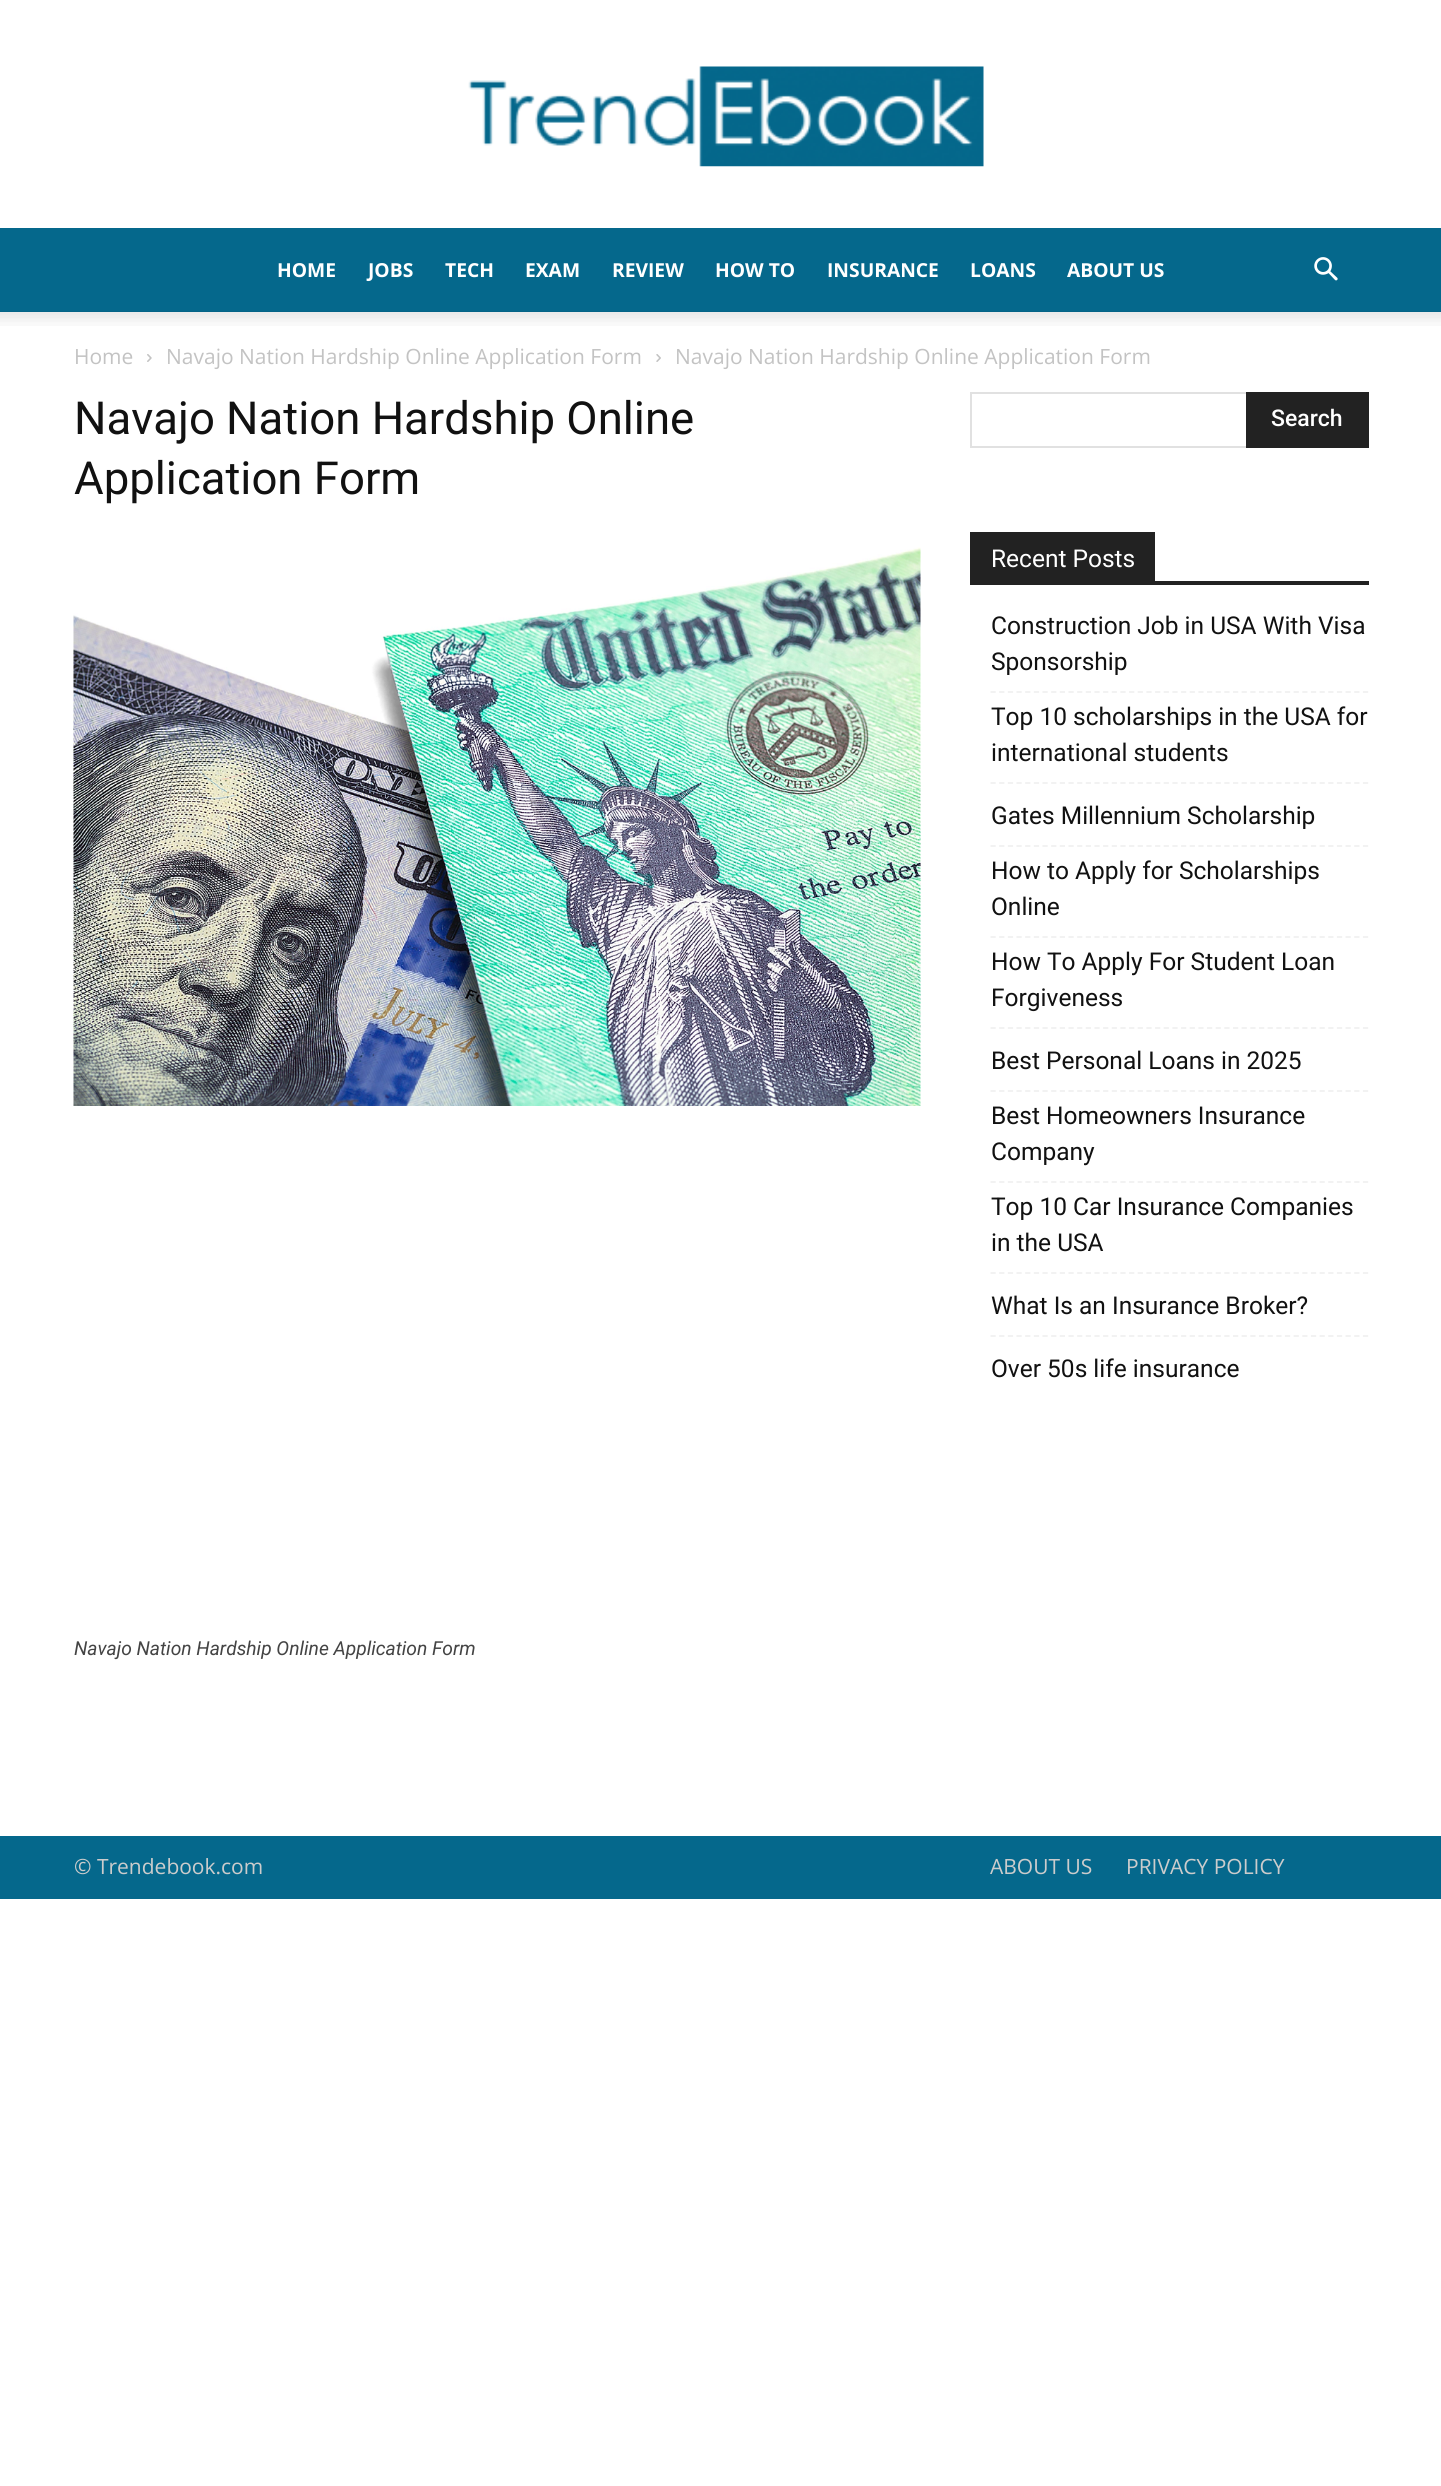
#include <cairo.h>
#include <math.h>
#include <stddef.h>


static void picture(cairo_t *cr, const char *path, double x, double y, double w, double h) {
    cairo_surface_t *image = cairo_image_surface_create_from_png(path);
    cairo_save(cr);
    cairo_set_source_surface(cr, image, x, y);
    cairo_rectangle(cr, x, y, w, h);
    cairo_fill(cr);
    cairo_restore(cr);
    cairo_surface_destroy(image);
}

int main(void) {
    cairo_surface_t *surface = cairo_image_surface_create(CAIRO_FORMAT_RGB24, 1441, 2486);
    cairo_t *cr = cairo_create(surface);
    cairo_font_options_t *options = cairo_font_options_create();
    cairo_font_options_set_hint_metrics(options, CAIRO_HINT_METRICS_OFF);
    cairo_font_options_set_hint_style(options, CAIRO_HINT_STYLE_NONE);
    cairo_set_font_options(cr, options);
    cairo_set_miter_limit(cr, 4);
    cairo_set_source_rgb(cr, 1, 1, 1);
    cairo_paint(cr);
    picture(cr, "img1.png", 468, 66, 516, 101);
    cairo_set_source_rgb(cr, 0.02, 0.408, 0.549);
    cairo_rectangle(cr, 0, 228, 1441, 84);
    cairo_fill(cr);
    cairo_select_font_face(cr, "Open Sans", CAIRO_FONT_SLANT_NORMAL, CAIRO_FONT_WEIGHT_BOLD);
    cairo_set_font_size(cr, 19.25);
    cairo_set_source_rgb(cr, 1, 1, 1);
    cairo_move_to(cr, 277, 277);
    cairo_show_text(cr, "HOME");
    cairo_move_to(cr, 368, 277);
    cairo_show_text(cr, "JOBS");
    cairo_move_to(cr, 445, 277);
    cairo_show_text(cr, "TECH");
    cairo_move_to(cr, 525, 277);
    cairo_show_text(cr, "EXAM");
    cairo_move_to(cr, 612, 277);
    cairo_show_text(cr, "REVIEW");
    cairo_move_to(cr, 715, 277);
    cairo_show_text(cr, "HOW TO");
    cairo_move_to(cr, 827, 277);
    cairo_show_text(cr, "INSURANCE");
    cairo_move_to(cr, 970, 277);
    cairo_show_text(cr, "LOANS");
    cairo_move_to(cr, 1067, 277);
    cairo_show_text(cr, "ABOUT US");
    picture(cr, "img2.png", 1314, 257, 24, 24);
    picture(cr, "img3.png", 0, 311, 1441, 15);
    cairo_select_font_face(cr, "Open Sans", CAIRO_FONT_SLANT_NORMAL, CAIRO_FONT_WEIGHT_NORMAL);
    cairo_set_font_size(cr, 21);
    cairo_set_source_rgb(cr, 0.765, 0.765, 0.765);
    cairo_move_to(cr, 74, 364);
    cairo_show_text(cr, "Home");
    picture(cr, "img4.png", 147, 354, 5, 8);
    cairo_move_to(cr, 166, 364);
    cairo_show_text(cr, "Navajo Nation Hardship Online Application Form");
    picture(cr, "img5.png", 656, 354, 5, 8);
    cairo_move_to(cr, 675, 364);
    cairo_show_text(cr, "Navajo Nation Hardship Online Application Form");
    cairo_select_font_face(cr, "Roboto", CAIRO_FONT_SLANT_NORMAL, CAIRO_FONT_WEIGHT_NORMAL);
    cairo_set_font_size(cr, 45.5);
    cairo_set_source_rgb(cr, 0.067, 0.067, 0.067);
    cairo_move_to(cr, 74, 434);
    cairo_show_text(cr, "Navajo Nation Hardship Online");
    cairo_move_to(cr, 74, 494);
    cairo_show_text(cr, "Application Form");
    picture(cr, "img6.png", 73, 547, 848, 559);
    cairo_select_font_face(cr, "Roboto", CAIRO_FONT_SLANT_ITALIC, CAIRO_FONT_WEIGHT_NORMAL);
    cairo_set_font_size(cr, 19.25);
    cairo_set_source_rgb(cr, 0.267, 0.267, 0.267);
    cairo_move_to(cr, 74, 1655);
    cairo_show_text(cr, "Navajo Nation Hardship Online Application Form");
    cairo_set_source_rgb(cr, 0.882, 0.882, 0.882);
    cairo_rectangle(cr, 970, 392, 276, 2);
    cairo_fill(cr);
    cairo_rectangle(cr, 970, 446, 276, 2);
    cairo_fill(cr);
    cairo_rectangle(cr, 970, 392, 2, 56);
    cairo_fill(cr);
    cairo_set_source_rgb(cr, 0.133, 0.133, 0.133);
    cairo_rectangle(cr, 1246, 392, 123, 56);
    cairo_fill(cr);
    cairo_select_font_face(cr, "Roboto Medium", CAIRO_FONT_SLANT_NORMAL, CAIRO_FONT_WEIGHT_NORMAL);
    cairo_set_font_size(cr, 23);
    cairo_set_source_rgb(cr, 1, 1, 1);
    cairo_move_to(cr, 1271, 426);
    cairo_show_text(cr, "Search");
    cairo_set_source_rgb(cr, 0.133, 0.133, 0.133);
    cairo_rectangle(cr, 970, 581, 399, 4);
    cairo_fill(cr);
    cairo_rectangle(cr, 970, 532, 185, 49);
    cairo_fill(cr);
    cairo_select_font_face(cr, "Roboto", CAIRO_FONT_SLANT_NORMAL, CAIRO_FONT_WEIGHT_NORMAL);
    cairo_set_font_size(cr, 24.5);
    cairo_set_source_rgb(cr, 1, 1, 1);
    cairo_move_to(cr, 991, 567);
    cairo_show_text(cr, "Recent Posts");
    cairo_new_path(cr);
    cairo_move_to(cr, 990.5, 692);
    cairo_line_to(cr, 1368.5, 692);
    cairo_set_source_rgb(cr, 0.945, 0.945, 0.945);
    cairo_set_line_width(cr, 1.8);
    cairo_set_dash(cr, (double[]){5.25, 3.41}, 2, 0);
    cairo_stroke(cr);
    cairo_set_source_rgb(cr, 0.067, 0.067, 0.067);
    cairo_move_to(cr, 991, 634);
    cairo_show_text(cr, "Construction Job in USA With Visa");
    cairo_move_to(cr, 991, 670);
    cairo_show_text(cr, "Sponsorship");
    cairo_new_path(cr);
    cairo_move_to(cr, 990.5, 783);
    cairo_line_to(cr, 1368.5, 783);
    cairo_set_source_rgb(cr, 0.945, 0.945, 0.945);
    cairo_stroke(cr);
    cairo_set_source_rgb(cr, 0.067, 0.067, 0.067);
    cairo_move_to(cr, 991, 725);
    cairo_show_text(cr, "Top 10 scholarships in the USA for");
    cairo_move_to(cr, 991, 761);
    cairo_show_text(cr, "international students");
    cairo_new_path(cr);
    cairo_move_to(cr, 990.5, 846);
    cairo_line_to(cr, 1368.5, 846);
    cairo_set_source_rgb(cr, 0.945, 0.945, 0.945);
    cairo_stroke(cr);
    cairo_set_source_rgb(cr, 0.067, 0.067, 0.067);
    cairo_move_to(cr, 991, 824);
    cairo_show_text(cr, "Gates Millennium Scholarship");
    cairo_new_path(cr);
    cairo_move_to(cr, 990.5, 937);
    cairo_line_to(cr, 1368.5, 937);
    cairo_set_source_rgb(cr, 0.945, 0.945, 0.945);
    cairo_stroke(cr);
    cairo_set_source_rgb(cr, 0.067, 0.067, 0.067);
    cairo_move_to(cr, 991, 879);
    cairo_show_text(cr, "How to Apply for Scholarships");
    cairo_move_to(cr, 991, 915);
    cairo_show_text(cr, "Online");
    cairo_new_path(cr);
    cairo_move_to(cr, 990.5, 1028);
    cairo_line_to(cr, 1368.5, 1028);
    cairo_set_source_rgb(cr, 0.945, 0.945, 0.945);
    cairo_stroke(cr);
    cairo_set_source_rgb(cr, 0.067, 0.067, 0.067);
    cairo_move_to(cr, 991, 970);
    cairo_show_text(cr, "How To Apply For Student Loan");
    cairo_move_to(cr, 991, 1006);
    cairo_show_text(cr, "Forgiveness");
    cairo_new_path(cr);
    cairo_move_to(cr, 990.5, 1091);
    cairo_line_to(cr, 1368.5, 1091);
    cairo_set_source_rgb(cr, 0.945, 0.945, 0.945);
    cairo_stroke(cr);
    cairo_set_source_rgb(cr, 0.067, 0.067, 0.067);
    cairo_move_to(cr, 991, 1069);
    cairo_show_text(cr, "Best Personal Loans in 2025");
    cairo_new_path(cr);
    cairo_move_to(cr, 990.5, 1182);
    cairo_line_to(cr, 1368.5, 1182);
    cairo_set_source_rgb(cr, 0.945, 0.945, 0.945);
    cairo_stroke(cr);
    cairo_set_source_rgb(cr, 0.067, 0.067, 0.067);
    cairo_move_to(cr, 991, 1124);
    cairo_show_text(cr, "Best Homeowners Insurance");
    cairo_move_to(cr, 991, 1160);
    cairo_show_text(cr, "Company");
    cairo_new_path(cr);
    cairo_move_to(cr, 990.5, 1273);
    cairo_line_to(cr, 1368.5, 1273);
    cairo_set_source_rgb(cr, 0.945, 0.945, 0.945);
    cairo_stroke(cr);
    cairo_set_source_rgb(cr, 0.067, 0.067, 0.067);
    cairo_move_to(cr, 991, 1215);
    cairo_show_text(cr, "Top 10 Car Insurance Companies");
    cairo_move_to(cr, 991, 1251);
    cairo_show_text(cr, "in the USA");
    cairo_new_path(cr);
    cairo_move_to(cr, 990.5, 1336);
    cairo_line_to(cr, 1368.5, 1336);
    cairo_set_source_rgb(cr, 0.945, 0.945, 0.945);
    cairo_stroke(cr);
    cairo_set_source_rgb(cr, 0.067, 0.067, 0.067);
    cairo_move_to(cr, 991, 1314);
    cairo_show_text(cr, "What Is an Insurance Broker?");
    cairo_move_to(cr, 991, 1377);
    cairo_show_text(cr, "Over 50s life insurance");
    cairo_set_source_rgb(cr, 0.02, 0.408, 0.549);
    cairo_rectangle(cr, 0, 1836, 1441, 63);
    cairo_fill(cr);
    cairo_select_font_face(cr, "Open Sans", CAIRO_FONT_SLANT_NORMAL, CAIRO_FONT_WEIGHT_NORMAL);
    cairo_set_font_size(cr, 21);
    cairo_set_source_rgb(cr, 0.8, 0.8, 0.8);
    cairo_move_to(cr, 74, 1874);
    cairo_show_text(cr, "© Trendebook.com");
    cairo_move_to(cr, 990, 1874);
    cairo_show_text(cr, "ABOUT US");
    cairo_move_to(cr, 1126, 1874);
    cairo_show_text(cr, "PRIVACY POLICY");
    cairo_surface_write_to_png(surface, "page.png");
    cairo_font_options_destroy(options);
    cairo_destroy(cr);
    cairo_surface_destroy(surface);
    return 0;
}
